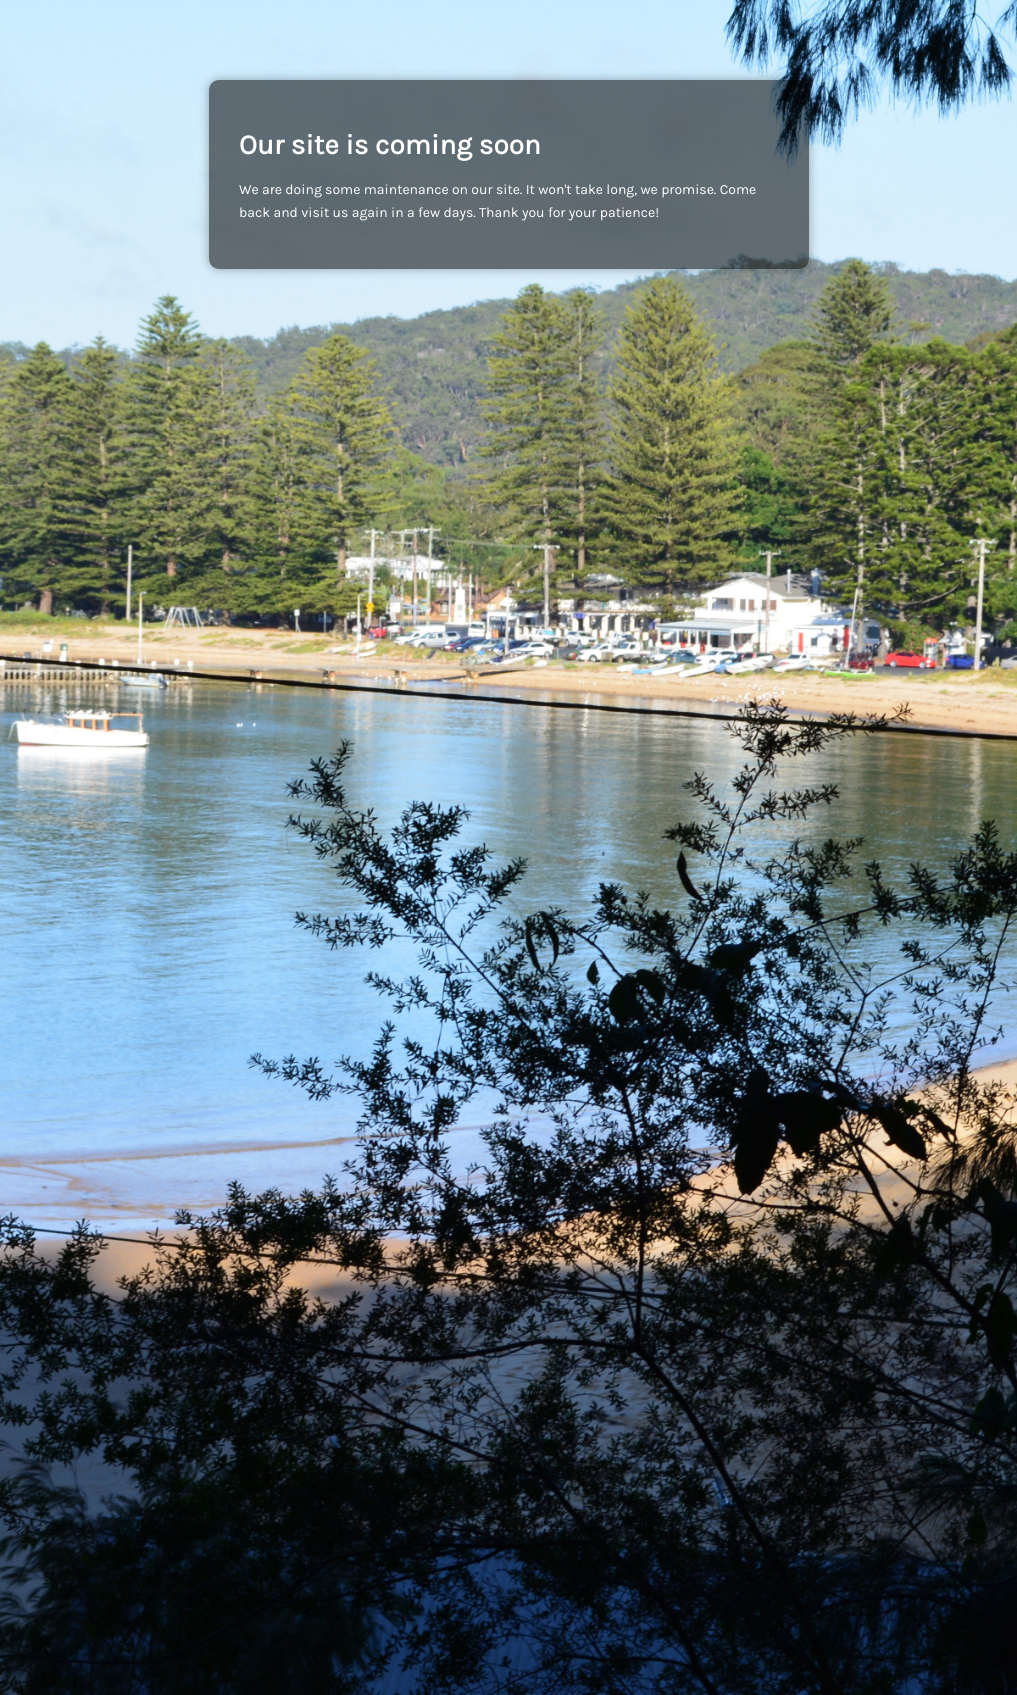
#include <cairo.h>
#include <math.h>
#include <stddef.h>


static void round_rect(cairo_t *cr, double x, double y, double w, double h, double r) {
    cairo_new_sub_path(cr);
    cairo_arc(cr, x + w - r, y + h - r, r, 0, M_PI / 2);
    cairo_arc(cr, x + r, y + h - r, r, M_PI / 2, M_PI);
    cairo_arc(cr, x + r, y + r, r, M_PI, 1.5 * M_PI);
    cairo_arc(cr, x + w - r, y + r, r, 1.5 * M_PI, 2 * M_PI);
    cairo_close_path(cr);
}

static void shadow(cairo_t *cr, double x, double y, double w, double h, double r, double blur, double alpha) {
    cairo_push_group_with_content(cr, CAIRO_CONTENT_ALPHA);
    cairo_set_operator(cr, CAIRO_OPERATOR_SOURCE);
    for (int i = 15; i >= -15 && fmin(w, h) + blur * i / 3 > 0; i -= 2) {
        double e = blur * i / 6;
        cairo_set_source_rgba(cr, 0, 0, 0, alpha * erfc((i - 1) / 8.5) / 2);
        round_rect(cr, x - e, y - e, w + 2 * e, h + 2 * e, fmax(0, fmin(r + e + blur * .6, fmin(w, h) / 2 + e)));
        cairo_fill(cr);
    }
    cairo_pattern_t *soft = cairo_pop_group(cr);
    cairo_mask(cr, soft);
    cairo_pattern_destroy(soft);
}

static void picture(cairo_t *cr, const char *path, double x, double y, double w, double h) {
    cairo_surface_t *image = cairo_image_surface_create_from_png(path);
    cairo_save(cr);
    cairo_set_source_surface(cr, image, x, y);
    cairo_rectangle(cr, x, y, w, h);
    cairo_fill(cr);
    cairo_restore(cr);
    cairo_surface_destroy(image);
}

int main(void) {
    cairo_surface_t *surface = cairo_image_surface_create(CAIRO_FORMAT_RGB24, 1017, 1695);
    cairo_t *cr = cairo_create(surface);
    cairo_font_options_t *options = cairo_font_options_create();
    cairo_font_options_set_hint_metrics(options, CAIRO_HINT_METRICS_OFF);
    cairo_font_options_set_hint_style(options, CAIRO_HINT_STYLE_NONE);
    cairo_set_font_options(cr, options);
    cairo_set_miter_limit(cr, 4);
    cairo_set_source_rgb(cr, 1, 1, 1);
    cairo_paint(cr);
    picture(cr, "img1.png", 0, 0, 1017, 1695);
    cairo_save(cr);
    cairo_set_fill_rule(cr, CAIRO_FILL_RULE_EVEN_ODD);
    cairo_new_path(cr);
    cairo_move_to(cr, 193, 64);
    cairo_line_to(cr, 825, 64);
    cairo_line_to(cr, 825, 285);
    cairo_line_to(cr, 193, 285);
    cairo_close_path(cr);
    cairo_move_to(cr, 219, 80);
    cairo_line_to(cr, 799, 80);
    cairo_curve_to(cr, 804.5, 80, 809, 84.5, 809, 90);
    cairo_line_to(cr, 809, 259);
    cairo_curve_to(cr, 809, 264.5, 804.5, 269, 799, 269);
    cairo_line_to(cr, 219, 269);
    cairo_curve_to(cr, 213.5, 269, 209, 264.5, 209, 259);
    cairo_line_to(cr, 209, 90);
    cairo_curve_to(cr, 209, 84.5, 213.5, 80, 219, 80);
    cairo_close_path(cr);
    cairo_clip(cr);
    cairo_set_source_rgb(cr, 0, 0, 0);
    shadow(cr, 209, 80, 600, 189, 10, 5, 0.33);
    cairo_restore(cr);
    cairo_set_source_rgba(cr, 0, 0, 0, 0.55);
    round_rect(cr, 209, 80, 600, 189, 10);
    cairo_fill(cr);
    cairo_select_font_face(cr, "Karla", CAIRO_FONT_SLANT_NORMAL, CAIRO_FONT_WEIGHT_BOLD);
    cairo_set_font_size(cr, 28);
    cairo_set_source_rgb(cr, 1, 1, 1);
    cairo_move_to(cr, 239, 154);
    cairo_show_text(cr, "Our site is coming soon");
    cairo_select_font_face(cr, "Karla", CAIRO_FONT_SLANT_NORMAL, CAIRO_FONT_WEIGHT_NORMAL);
    cairo_set_font_size(cr, 14);
    cairo_move_to(cr, 239, 194);
    cairo_show_text(cr, "We are doing some maintenance on our site. It won't take long, we promise. Come");
    cairo_move_to(cr, 239, 217);
    cairo_show_text(cr, "back and visit us again in a few days. Thank you for your patience!");
    cairo_surface_write_to_png(surface, "page.png");
    cairo_font_options_destroy(options);
    cairo_destroy(cr);
    cairo_surface_destroy(surface);
    return 0;
}
